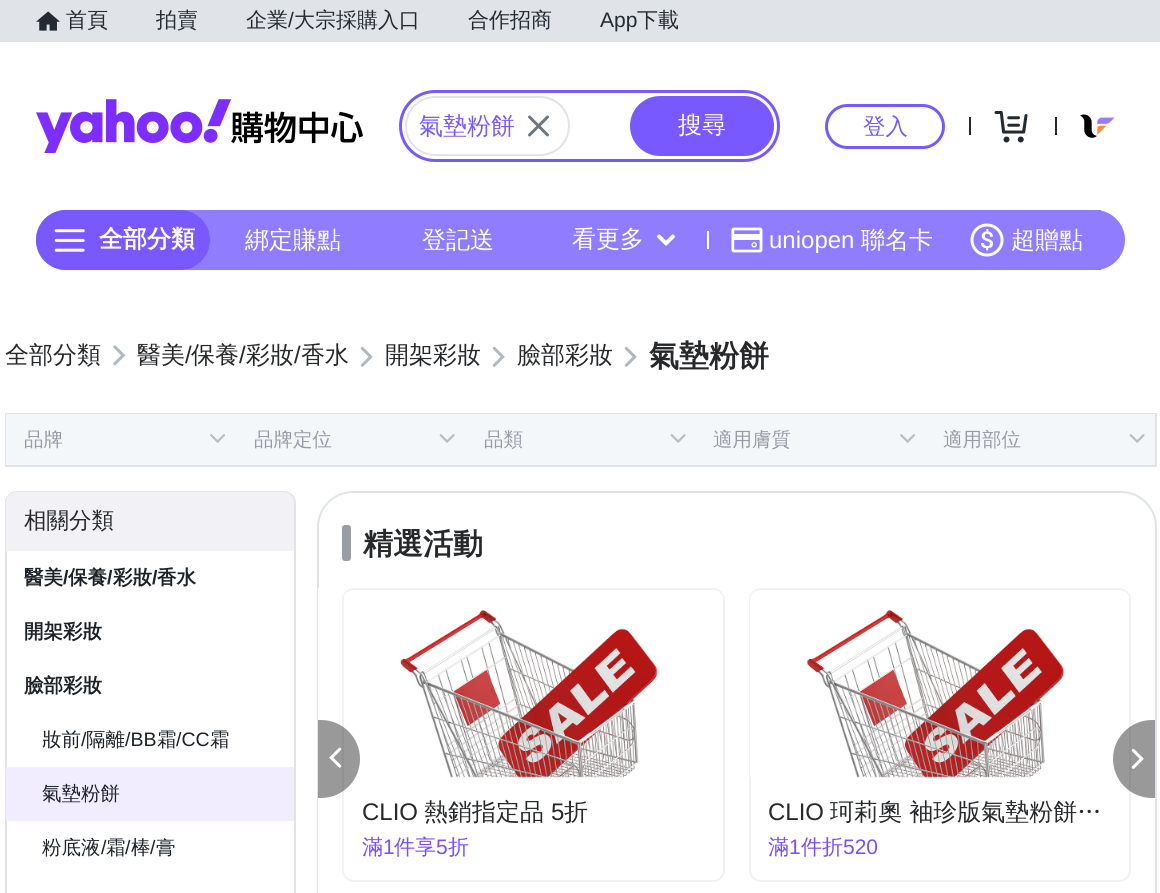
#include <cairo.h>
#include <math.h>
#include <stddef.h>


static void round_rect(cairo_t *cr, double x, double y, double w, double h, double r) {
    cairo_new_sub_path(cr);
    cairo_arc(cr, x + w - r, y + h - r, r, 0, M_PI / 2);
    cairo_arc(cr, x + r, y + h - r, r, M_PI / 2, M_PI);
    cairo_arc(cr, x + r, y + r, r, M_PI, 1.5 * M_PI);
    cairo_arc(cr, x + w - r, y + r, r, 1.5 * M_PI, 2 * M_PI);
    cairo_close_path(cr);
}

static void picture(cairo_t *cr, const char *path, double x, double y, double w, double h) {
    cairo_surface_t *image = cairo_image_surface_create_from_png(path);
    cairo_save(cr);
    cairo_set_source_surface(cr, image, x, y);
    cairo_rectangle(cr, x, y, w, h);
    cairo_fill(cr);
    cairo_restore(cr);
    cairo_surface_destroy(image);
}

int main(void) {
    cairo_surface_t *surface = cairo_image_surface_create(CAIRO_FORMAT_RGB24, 1160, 893);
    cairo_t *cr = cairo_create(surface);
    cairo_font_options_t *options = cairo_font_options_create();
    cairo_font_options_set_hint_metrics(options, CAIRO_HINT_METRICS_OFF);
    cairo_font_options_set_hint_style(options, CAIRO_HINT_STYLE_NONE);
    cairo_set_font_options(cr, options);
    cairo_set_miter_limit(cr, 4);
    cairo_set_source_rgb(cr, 1, 1, 1);
    cairo_paint(cr);
    cairo_set_source_rgb(cr, 0.878, 0.894, 0.914);
    cairo_rectangle(cr, 0, 0, 1160, 42);
    cairo_fill(cr);
    picture(cr, "img1.png", 36, 11, 24, 20);
    cairo_select_font_face(cr, "WenQuanYi Zen Hei Medium", CAIRO_FONT_SLANT_NORMAL, CAIRO_FONT_WEIGHT_NORMAL);
    cairo_set_font_size(cr, 21);
    cairo_set_source_rgb(cr, 0.137, 0.165, 0.192);
    cairo_move_to(cr, 66, 27);
    cairo_show_text(cr, "首頁");
    cairo_move_to(cr, 156, 27);
    cairo_show_text(cr, "拍賣");
    cairo_move_to(cr, 246, 27);
    cairo_show_text(cr, "企業");
    cairo_select_font_face(cr, "Liberation Sans", CAIRO_FONT_SLANT_NORMAL, CAIRO_FONT_WEIGHT_NORMAL);
    cairo_move_to(cr, 288, 27);
    cairo_show_text(cr, "/");
    cairo_select_font_face(cr, "WenQuanYi Zen Hei Medium", CAIRO_FONT_SLANT_NORMAL, CAIRO_FONT_WEIGHT_NORMAL);
    cairo_move_to(cr, 294, 27);
    cairo_show_text(cr, "大宗採購入口");
    cairo_move_to(cr, 468, 27);
    cairo_show_text(cr, "合作招商");
    cairo_select_font_face(cr, "Liberation Sans", CAIRO_FONT_SLANT_NORMAL, CAIRO_FONT_WEIGHT_NORMAL);
    cairo_move_to(cr, 600, 27);
    cairo_show_text(cr, "App");
    cairo_select_font_face(cr, "WenQuanYi Zen Hei Medium", CAIRO_FONT_SLANT_NORMAL, CAIRO_FONT_WEIGHT_NORMAL);
    cairo_move_to(cr, 637, 27);
    cairo_show_text(cr, "下載");
    picture(cr, "img2.png", 36, 99, 327, 54);
    round_rect(cr, 400.5, 91.5, 378, 69, 34.5);
    cairo_set_source_rgb(cr, 0.467, 0.349, 1);
    cairo_set_line_width(cr, 3);
    cairo_stroke(cr);
    round_rect(cr, 406, 97, 163, 58, 29);
    cairo_set_source_rgb(cr, 0.878, 0.894, 0.914);
    cairo_set_line_width(cr, 2);
    cairo_stroke(cr);
    cairo_set_font_size(cr, 24);
    cairo_set_source_rgb(cr, 0.467, 0.349, 1);
    cairo_move_to(cr, 419, 134);
    cairo_show_text(cr, "氣墊粉餅");
    picture(cr, "img3.png", 528, 115, 21, 22);
    round_rect(cr, 630, 96, 144, 60, 30);
    cairo_fill(cr);
    cairo_set_source_rgb(cr, 1, 1, 1);
    cairo_move_to(cr, 678, 133);
    cairo_show_text(cr, "搜尋");
    round_rect(cr, 826.5, 105.5, 117, 42, 21);
    cairo_set_source_rgb(cr, 0.467, 0.349, 1);
    cairo_set_line_width(cr, 3);
    cairo_stroke(cr);
    cairo_set_font_size(cr, 22.5);
    cairo_move_to(cr, 863, 134);
    cairo_show_text(cr, "登入");
    cairo_set_source_rgb(cr, 0.137, 0.165, 0.192);
    cairo_rectangle(cr, 969, 117, 2, 18);
    cairo_fill(cr);
    picture(cr, "img4.png", 994, 111, 34, 32);
    cairo_rectangle(cr, 1055, 117, 2, 18);
    cairo_fill(cr);
    picture(cr, "img5.png", 1080, 114, 35, 24);
    cairo_set_source_rgb(cr, 0.565, 0.486, 1);
    round_rect(cr, 36, 210, 1089, 60, 30);
    cairo_fill(cr);
    cairo_set_source_rgb(cr, 0.467, 0.349, 1);
    round_rect(cr, 36, 210, 174, 60, 30);
    cairo_fill(cr);
    picture(cr, "img6.png", 54, 229, 31, 23);
    cairo_select_font_face(cr, "WenQuanYi Zen Hei", CAIRO_FONT_SLANT_NORMAL, CAIRO_FONT_WEIGHT_BOLD);
    cairo_set_font_size(cr, 24);
    cairo_set_source_rgb(cr, 1, 1, 1);
    cairo_move_to(cr, 99, 247);
    cairo_show_text(cr, "全部分類");
    cairo_select_font_face(cr, "WenQuanYi Zen Hei Medium", CAIRO_FONT_SLANT_NORMAL, CAIRO_FONT_WEIGHT_NORMAL);
    cairo_move_to(cr, 245, 248);
    cairo_show_text(cr, "綁定賺點");
    cairo_move_to(cr, 422, 248);
    cairo_show_text(cr, "登記送");
    cairo_move_to(cr, 572, 247);
    cairo_show_text(cr, "看更多");
    picture(cr, "img7.png", 657, 234, 18, 12);
    cairo_rectangle(cr, 707, 231, 2, 18);
    cairo_fill(cr);
    picture(cr, "img8.png", 731, 227, 32, 26);
    cairo_select_font_face(cr, "Liberation Sans", CAIRO_FONT_SLANT_NORMAL, CAIRO_FONT_WEIGHT_NORMAL);
    cairo_move_to(cr, 769, 248);
    cairo_show_text(cr, "uniopen");
    cairo_select_font_face(cr, "WenQuanYi Zen Hei Medium", CAIRO_FONT_SLANT_NORMAL, CAIRO_FONT_WEIGHT_NORMAL);
    cairo_move_to(cr, 861, 248);
    cairo_show_text(cr, "聯名卡");
    cairo_set_source_rgb(cr, 0.565, 0.486, 1);
    cairo_rectangle(cr, 1095, 210, 6, 60);
    cairo_fill(cr);
    picture(cr, "img9.png", 970, 223, 34, 34);
    cairo_set_source_rgb(cr, 1, 1, 1);
    cairo_move_to(cr, 1011, 248);
    cairo_show_text(cr, "超贈點");
    picture(cr, "img10.png", 113, 345, 13, 21);
    cairo_set_source_rgb(cr, 0.149, 0.157, 0.165);
    cairo_move_to(cr, 5, 363);
    cairo_show_text(cr, "全部分類");
    cairo_move_to(cr, 137, 363);
    cairo_show_text(cr, "醫美");
    cairo_select_font_face(cr, "Liberation Sans", CAIRO_FONT_SLANT_NORMAL, CAIRO_FONT_WEIGHT_NORMAL);
    cairo_move_to(cr, 185, 363);
    cairo_show_text(cr, "/");
    cairo_select_font_face(cr, "WenQuanYi Zen Hei Medium", CAIRO_FONT_SLANT_NORMAL, CAIRO_FONT_WEIGHT_NORMAL);
    cairo_move_to(cr, 191, 363);
    cairo_show_text(cr, "保養");
    cairo_select_font_face(cr, "Liberation Sans", CAIRO_FONT_SLANT_NORMAL, CAIRO_FONT_WEIGHT_NORMAL);
    cairo_move_to(cr, 239, 363);
    cairo_show_text(cr, "/");
    cairo_select_font_face(cr, "WenQuanYi Zen Hei Medium", CAIRO_FONT_SLANT_NORMAL, CAIRO_FONT_WEIGHT_NORMAL);
    cairo_move_to(cr, 246, 363);
    cairo_show_text(cr, "彩妝");
    cairo_select_font_face(cr, "Liberation Sans", CAIRO_FONT_SLANT_NORMAL, CAIRO_FONT_WEIGHT_NORMAL);
    cairo_move_to(cr, 294, 363);
    cairo_show_text(cr, "/");
    cairo_select_font_face(cr, "WenQuanYi Zen Hei Medium", CAIRO_FONT_SLANT_NORMAL, CAIRO_FONT_WEIGHT_NORMAL);
    cairo_move_to(cr, 301, 363);
    cairo_show_text(cr, "香水");
    picture(cr, "img11.png", 360, 346, 13, 21);
    cairo_move_to(cr, 385, 363);
    cairo_show_text(cr, "開架彩妝");
    picture(cr, "img11.png", 492, 346, 13, 21);
    cairo_move_to(cr, 517, 363);
    cairo_show_text(cr, "臉部彩妝");
    picture(cr, "img11.png", 624, 346, 13, 21);
    cairo_select_font_face(cr, "WenQuanYi Zen Hei", CAIRO_FONT_SLANT_NORMAL, CAIRO_FONT_WEIGHT_BOLD);
    cairo_set_font_size(cr, 30);
    cairo_move_to(cr, 649, 366);
    cairo_show_text(cr, "氣墊粉餅");
    cairo_rectangle(cr, 6, 414, 1150, 52);
    cairo_set_source_rgb(cr, 0.878, 0.894, 0.914);
    cairo_set_line_width(cr, 2);
    cairo_stroke(cr);
    cairo_set_source_rgb(cr, 0.957, 0.965, 0.976);
    cairo_rectangle(cr, 6, 414, 1149, 51);
    cairo_fill(cr);
    cairo_select_font_face(cr, "WenQuanYi Zen Hei Medium", CAIRO_FONT_SLANT_NORMAL, CAIRO_FONT_WEIGHT_NORMAL);
    cairo_set_font_size(cr, 19.5);
    cairo_set_source_rgb(cr, 0.592, 0.608, 0.655);
    cairo_move_to(cr, 24, 446);
    cairo_show_text(cr, "品牌");
    picture(cr, "img12.png", 210, 434, 15, 9);
    cairo_move_to(cr, 254, 446);
    cairo_show_text(cr, "品牌定位");
    picture(cr, "img13.png", 439, 434, 16, 9);
    cairo_move_to(cr, 484, 446);
    cairo_show_text(cr, "品類");
    picture(cr, "img13.png", 670, 434, 16, 9);
    cairo_move_to(cr, 713, 446);
    cairo_show_text(cr, "適用膚質");
    picture(cr, "img12.png", 900, 434, 15, 9);
    cairo_move_to(cr, 943, 446);
    cairo_show_text(cr, "適用部位");
    picture(cr, "img13.png", 1129, 434, 16, 9);
    round_rect(cr, 6, 492, 289, 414, 11);
    cairo_set_source_rgb(cr, 0.878, 0.894, 0.914);
    cairo_stroke(cr);
    cairo_set_source_rgb(cr, 0.945, 0.945, 0.961);
    cairo_new_path(cr);
    cairo_move_to(cr, 17, 492);
    cairo_line_to(cr, 283, 492);
    cairo_curve_to(cr, 289, 492, 294, 497, 294, 503);
    cairo_line_to(cr, 294, 551);
    cairo_line_to(cr, 6, 551);
    cairo_line_to(cr, 6, 503);
    cairo_curve_to(cr, 6, 497, 11, 492, 17, 492);
    cairo_close_path(cr);
    cairo_fill(cr);
    cairo_set_font_size(cr, 22.5);
    cairo_set_source_rgb(cr, 0.149, 0.157, 0.165);
    cairo_move_to(cr, 24, 528);
    cairo_show_text(cr, "相關分類");
    cairo_select_font_face(cr, "WenQuanYi Zen Hei", CAIRO_FONT_SLANT_NORMAL, CAIRO_FONT_WEIGHT_BOLD);
    cairo_set_font_size(cr, 19.5);
    cairo_set_source_rgb(cr, 0.114, 0.133, 0.157);
    cairo_move_to(cr, 24, 584);
    cairo_show_text(cr, "醫美");
    cairo_select_font_face(cr, "Liberation Sans", CAIRO_FONT_SLANT_NORMAL, CAIRO_FONT_WEIGHT_BOLD);
    cairo_move_to(cr, 63, 584);
    cairo_show_text(cr, "/");
    cairo_select_font_face(cr, "WenQuanYi Zen Hei", CAIRO_FONT_SLANT_NORMAL, CAIRO_FONT_WEIGHT_BOLD);
    cairo_move_to(cr, 68, 584);
    cairo_show_text(cr, "保養");
    cairo_select_font_face(cr, "Liberation Sans", CAIRO_FONT_SLANT_NORMAL, CAIRO_FONT_WEIGHT_BOLD);
    cairo_move_to(cr, 107, 584);
    cairo_show_text(cr, "/");
    cairo_select_font_face(cr, "WenQuanYi Zen Hei", CAIRO_FONT_SLANT_NORMAL, CAIRO_FONT_WEIGHT_BOLD);
    cairo_move_to(cr, 113, 584);
    cairo_show_text(cr, "彩妝");
    cairo_select_font_face(cr, "Liberation Sans", CAIRO_FONT_SLANT_NORMAL, CAIRO_FONT_WEIGHT_BOLD);
    cairo_move_to(cr, 152, 584);
    cairo_show_text(cr, "/");
    cairo_select_font_face(cr, "WenQuanYi Zen Hei", CAIRO_FONT_SLANT_NORMAL, CAIRO_FONT_WEIGHT_BOLD);
    cairo_move_to(cr, 157, 584);
    cairo_show_text(cr, "香水");
    cairo_move_to(cr, 24, 638);
    cairo_show_text(cr, "開架彩妝");
    cairo_move_to(cr, 24, 692);
    cairo_show_text(cr, "臉部彩妝");
    cairo_select_font_face(cr, "WenQuanYi Zen Hei Medium", CAIRO_FONT_SLANT_NORMAL, CAIRO_FONT_WEIGHT_NORMAL);
    cairo_move_to(cr, 42, 746);
    cairo_show_text(cr, "妝前");
    cairo_select_font_face(cr, "Liberation Sans", CAIRO_FONT_SLANT_NORMAL, CAIRO_FONT_WEIGHT_NORMAL);
    cairo_move_to(cr, 81, 746);
    cairo_show_text(cr, "/");
    cairo_select_font_face(cr, "WenQuanYi Zen Hei Medium", CAIRO_FONT_SLANT_NORMAL, CAIRO_FONT_WEIGHT_NORMAL);
    cairo_move_to(cr, 86, 746);
    cairo_show_text(cr, "隔離");
    cairo_select_font_face(cr, "Liberation Sans", CAIRO_FONT_SLANT_NORMAL, CAIRO_FONT_WEIGHT_NORMAL);
    cairo_move_to(cr, 125, 746);
    cairo_show_text(cr, "/BB");
    cairo_select_font_face(cr, "WenQuanYi Zen Hei Medium", CAIRO_FONT_SLANT_NORMAL, CAIRO_FONT_WEIGHT_NORMAL);
    cairo_move_to(cr, 157, 746);
    cairo_show_text(cr, "霜");
    cairo_select_font_face(cr, "Liberation Sans", CAIRO_FONT_SLANT_NORMAL, CAIRO_FONT_WEIGHT_NORMAL);
    cairo_move_to(cr, 176, 746);
    cairo_show_text(cr, "/CC");
    cairo_select_font_face(cr, "WenQuanYi Zen Hei Medium", CAIRO_FONT_SLANT_NORMAL, CAIRO_FONT_WEIGHT_NORMAL);
    cairo_move_to(cr, 210, 746);
    cairo_show_text(cr, "霜");
    cairo_set_source_rgb(cr, 0.945, 0.929, 1);
    cairo_rectangle(cr, 6, 767, 288, 54);
    cairo_fill(cr);
    cairo_set_source_rgb(cr, 0.114, 0.133, 0.157);
    cairo_move_to(cr, 42, 800);
    cairo_show_text(cr, "氣墊粉餅");
    cairo_move_to(cr, 42, 854);
    cairo_show_text(cr, "粉底液");
    cairo_select_font_face(cr, "Liberation Sans", CAIRO_FONT_SLANT_NORMAL, CAIRO_FONT_WEIGHT_NORMAL);
    cairo_move_to(cr, 101, 854);
    cairo_show_text(cr, "/");
    cairo_select_font_face(cr, "WenQuanYi Zen Hei Medium", CAIRO_FONT_SLANT_NORMAL, CAIRO_FONT_WEIGHT_NORMAL);
    cairo_move_to(cr, 106, 854);
    cairo_show_text(cr, "霜");
    cairo_select_font_face(cr, "Liberation Sans", CAIRO_FONT_SLANT_NORMAL, CAIRO_FONT_WEIGHT_NORMAL);
    cairo_move_to(cr, 125, 854);
    cairo_show_text(cr, "/");
    cairo_select_font_face(cr, "WenQuanYi Zen Hei Medium", CAIRO_FONT_SLANT_NORMAL, CAIRO_FONT_WEIGHT_NORMAL);
    cairo_move_to(cr, 131, 854);
    cairo_show_text(cr, "棒");
    cairo_select_font_face(cr, "Liberation Sans", CAIRO_FONT_SLANT_NORMAL, CAIRO_FONT_WEIGHT_NORMAL);
    cairo_move_to(cr, 150, 854);
    cairo_show_text(cr, "/");
    cairo_select_font_face(cr, "WenQuanYi Zen Hei Medium", CAIRO_FONT_SLANT_NORMAL, CAIRO_FONT_WEIGHT_NORMAL);
    cairo_move_to(cr, 156, 854);
    cairo_show_text(cr, "膏");
    round_rect(cr, 318, 492, 838, 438, 35);
    cairo_set_source_rgb(cr, 0.878, 0.894, 0.914);
    cairo_stroke(cr);
    cairo_set_source_rgb(cr, 0.592, 0.62, 0.659);
    round_rect(cr, 342, 525, 9, 36, 3);
    cairo_fill(cr);
    cairo_select_font_face(cr, "WenQuanYi Zen Hei", CAIRO_FONT_SLANT_NORMAL, CAIRO_FONT_WEIGHT_BOLD);
    cairo_set_font_size(cr, 30);
    cairo_set_source_rgb(cr, 0.149, 0.157, 0.165);
    cairo_move_to(cr, 363, 554);
    cairo_show_text(cr, "精選活動");
    cairo_set_source_rgb(cr, 1, 1, 1);
    cairo_rectangle(cr, 318, 588, 1, 305);
    cairo_fill(cr);
    round_rect(cr, 343, 589, 381, 292, 11);
    cairo_set_source_rgb(cr, 0.945, 0.945, 0.961);
    cairo_stroke(cr);
    picture(cr, "img16.png", 344, 591, 376, 187);
    cairo_set_source_rgba(cr, 0, 0, 0, 0.4);
    cairo_new_path(cr);
    cairo_move_to(cr, 318, 720);
    cairo_line_to(cr, 321, 720);
    cairo_curve_to(cr, 342.5, 720, 360, 737.5, 360, 759);
    cairo_curve_to(cr, 360, 780.5, 342.5, 798, 321, 798);
    cairo_line_to(cr, 318, 798);
    cairo_close_path(cr);
    cairo_fill(cr);
    picture(cr, "img14.png", 329, 747, 13, 21);
    round_rect(cr, 750, 589, 380, 292, 11);
    cairo_set_source_rgb(cr, 0.945, 0.945, 0.961);
    cairo_stroke(cr);
    picture(cr, "img17.png", 750, 591, 379, 187);
    cairo_set_source_rgba(cr, 0, 0, 0, 0.4);
    cairo_new_path(cr);
    cairo_move_to(cr, 1152, 720);
    cairo_line_to(cr, 1155, 720);
    cairo_line_to(cr, 1155, 798);
    cairo_line_to(cr, 1152, 798);
    cairo_curve_to(cr, 1130.5, 798, 1113, 780.5, 1113, 759);
    cairo_curve_to(cr, 1113, 737.5, 1130.5, 720, 1152, 720);
    cairo_close_path(cr);
    cairo_fill(cr);
    picture(cr, "img15.png", 1131, 748, 13, 21);
    cairo_select_font_face(cr, "Liberation Sans", CAIRO_FONT_SLANT_NORMAL, CAIRO_FONT_WEIGHT_NORMAL);
    cairo_set_font_size(cr, 24);
    cairo_set_source_rgb(cr, 0.149, 0.157, 0.165);
    cairo_move_to(cr, 362, 820);
    cairo_show_text(cr, "CLIO");
    cairo_select_font_face(cr, "WenQuanYi Zen Hei Medium", CAIRO_FONT_SLANT_NORMAL, CAIRO_FONT_WEIGHT_NORMAL);
    cairo_move_to(cr, 424, 820);
    cairo_show_text(cr, "熱銷指定品");
    cairo_select_font_face(cr, "Liberation Sans", CAIRO_FONT_SLANT_NORMAL, CAIRO_FONT_WEIGHT_NORMAL);
    cairo_move_to(cr, 551, 820);
    cairo_show_text(cr, "5");
    cairo_select_font_face(cr, "WenQuanYi Zen Hei Medium", CAIRO_FONT_SLANT_NORMAL, CAIRO_FONT_WEIGHT_NORMAL);
    cairo_move_to(cr, 564, 820);
    cairo_show_text(cr, "折");
    cairo_set_font_size(cr, 21);
    cairo_set_source_rgb(cr, 0.478, 0.302, 1);
    cairo_move_to(cr, 362, 854);
    cairo_show_text(cr, "滿");
    cairo_select_font_face(cr, "Liberation Sans", CAIRO_FONT_SLANT_NORMAL, CAIRO_FONT_WEIGHT_NORMAL);
    cairo_move_to(cr, 383, 854);
    cairo_show_text(cr, "1");
    cairo_select_font_face(cr, "WenQuanYi Zen Hei Medium", CAIRO_FONT_SLANT_NORMAL, CAIRO_FONT_WEIGHT_NORMAL);
    cairo_move_to(cr, 394, 854);
    cairo_show_text(cr, "件享");
    cairo_select_font_face(cr, "Liberation Sans", CAIRO_FONT_SLANT_NORMAL, CAIRO_FONT_WEIGHT_NORMAL);
    cairo_move_to(cr, 436, 854);
    cairo_show_text(cr, "5");
    cairo_select_font_face(cr, "WenQuanYi Zen Hei Medium", CAIRO_FONT_SLANT_NORMAL, CAIRO_FONT_WEIGHT_NORMAL);
    cairo_move_to(cr, 448, 854);
    cairo_show_text(cr, "折");
    cairo_select_font_face(cr, "Liberation Sans", CAIRO_FONT_SLANT_NORMAL, CAIRO_FONT_WEIGHT_NORMAL);
    cairo_set_font_size(cr, 24);
    cairo_set_source_rgb(cr, 0.149, 0.157, 0.165);
    cairo_move_to(cr, 768, 820);
    cairo_show_text(cr, "CLIO");
    cairo_select_font_face(cr, "WenQuanYi Zen Hei Medium", CAIRO_FONT_SLANT_NORMAL, CAIRO_FONT_WEIGHT_NORMAL);
    cairo_move_to(cr, 830, 820);
    cairo_show_text(cr, "珂莉奧 袖珍版氣墊粉餅…");
    cairo_set_font_size(cr, 21);
    cairo_set_source_rgb(cr, 0.478, 0.302, 1);
    cairo_move_to(cr, 768, 854);
    cairo_show_text(cr, "滿");
    cairo_select_font_face(cr, "Liberation Sans", CAIRO_FONT_SLANT_NORMAL, CAIRO_FONT_WEIGHT_NORMAL);
    cairo_move_to(cr, 789, 854);
    cairo_show_text(cr, "1");
    cairo_select_font_face(cr, "WenQuanYi Zen Hei Medium", CAIRO_FONT_SLANT_NORMAL, CAIRO_FONT_WEIGHT_NORMAL);
    cairo_move_to(cr, 801, 854);
    cairo_show_text(cr, "件折");
    cairo_select_font_face(cr, "Liberation Sans", CAIRO_FONT_SLANT_NORMAL, CAIRO_FONT_WEIGHT_NORMAL);
    cairo_move_to(cr, 843, 854);
    cairo_show_text(cr, "520");
    cairo_surface_write_to_png(surface, "page.png");
    cairo_font_options_destroy(options);
    cairo_destroy(cr);
    cairo_surface_destroy(surface);
    return 0;
}
